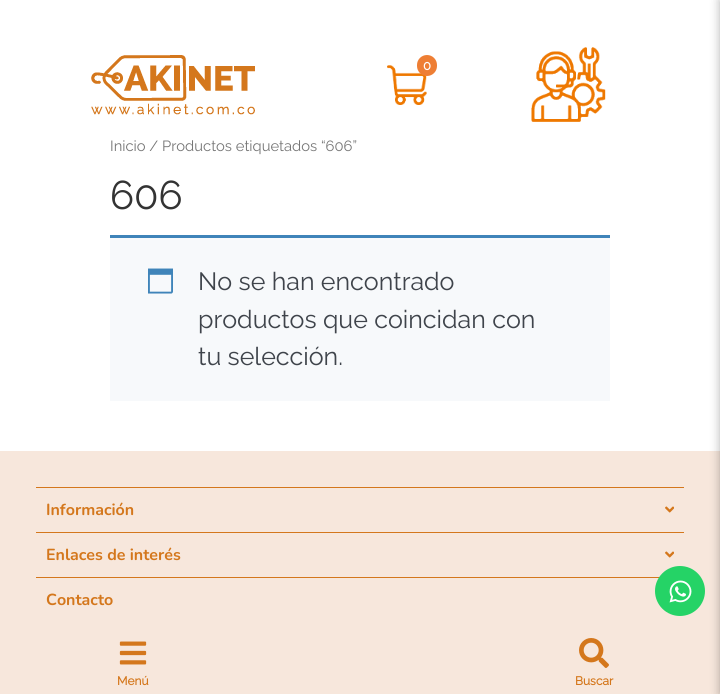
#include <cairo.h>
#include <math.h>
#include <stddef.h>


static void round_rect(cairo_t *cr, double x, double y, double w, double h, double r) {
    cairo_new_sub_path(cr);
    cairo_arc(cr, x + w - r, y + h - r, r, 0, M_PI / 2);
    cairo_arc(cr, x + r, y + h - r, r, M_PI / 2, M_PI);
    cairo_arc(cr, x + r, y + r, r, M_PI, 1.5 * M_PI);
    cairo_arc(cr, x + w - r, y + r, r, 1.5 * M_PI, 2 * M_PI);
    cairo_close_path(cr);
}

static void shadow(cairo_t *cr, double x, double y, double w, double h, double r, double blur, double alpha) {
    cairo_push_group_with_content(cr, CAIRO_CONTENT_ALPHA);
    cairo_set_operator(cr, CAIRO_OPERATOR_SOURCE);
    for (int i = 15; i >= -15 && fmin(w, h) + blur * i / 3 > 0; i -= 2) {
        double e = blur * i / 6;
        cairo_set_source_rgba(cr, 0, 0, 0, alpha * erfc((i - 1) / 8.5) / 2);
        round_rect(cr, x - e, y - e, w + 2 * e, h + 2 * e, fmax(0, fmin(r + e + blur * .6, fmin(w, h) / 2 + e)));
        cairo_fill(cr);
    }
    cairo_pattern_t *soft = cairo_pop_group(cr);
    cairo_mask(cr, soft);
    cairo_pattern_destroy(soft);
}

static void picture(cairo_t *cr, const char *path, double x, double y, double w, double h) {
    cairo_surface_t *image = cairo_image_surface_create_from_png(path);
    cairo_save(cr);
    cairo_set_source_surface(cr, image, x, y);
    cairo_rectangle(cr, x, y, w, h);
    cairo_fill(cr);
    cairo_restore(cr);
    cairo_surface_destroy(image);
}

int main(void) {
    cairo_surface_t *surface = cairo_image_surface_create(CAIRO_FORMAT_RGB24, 720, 694);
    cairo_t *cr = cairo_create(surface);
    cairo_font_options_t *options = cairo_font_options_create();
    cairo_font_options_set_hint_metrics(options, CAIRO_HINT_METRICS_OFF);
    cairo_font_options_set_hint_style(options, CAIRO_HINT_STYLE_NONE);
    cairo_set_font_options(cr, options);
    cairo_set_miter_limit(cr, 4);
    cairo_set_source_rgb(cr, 1, 1, 1);
    cairo_paint(cr);
    picture(cr, "img1.png", 91, 55, 164, 60);
    picture(cr, "img2.png", 387, 65, 40, 40);
    cairo_set_source_rgb(cr, 0.933, 0.494, 0.204);
    round_rect(cr, 417, 55, 20, 21, 10);
    cairo_fill(cr);
    cairo_select_font_face(cr, "Raleway", CAIRO_FONT_SLANT_NORMAL, CAIRO_FONT_WEIGHT_BOLD);
    cairo_set_font_size(cr, 13);
    cairo_set_source_rgb(cr, 1, 1, 1);
    cairo_move_to(cr, 423, 70);
    cairo_show_text(cr, "0");
    cairo_set_source_rgb(cr, 0.965, 0.906, 0.863);
    cairo_rectangle(cr, 0, 451, 720, 243);
    cairo_fill(cr);
    cairo_set_source_rgb(cr, 0.831, 0.467, 0.11);
    cairo_rectangle(cr, 36, 577, 624, 1);
    cairo_fill(cr);
    cairo_set_source_rgb(cr, 0.145, 0.827, 0.4);
    cairo_arc(cr, 680, 591, 25, 0, 2 * M_PI);
    cairo_fill(cr);
    cairo_set_source_rgb(cr, 0, 0, 0);
    shadow(cr, 720, 0, 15, 694, 0, 5, 0.3);
    picture(cr, "img3.png", 531, 47, 75, 75);
    cairo_select_font_face(cr, "Raleway", CAIRO_FONT_SLANT_NORMAL, CAIRO_FONT_WEIGHT_NORMAL);
    cairo_set_font_size(cr, 14.75);
    cairo_set_source_rgb(cr, 0.463, 0.463, 0.463);
    cairo_move_to(cr, 110, 151);
    cairo_show_text(cr, "Inicio / Productos etiquetados “606”");
    cairo_set_font_size(cr, 40);
    cairo_set_source_rgb(cr, 0.2, 0.2, 0.2);
    cairo_move_to(cr, 110, 209);
    cairo_show_text(cr, "606");
    cairo_set_source_rgb(cr, 0.965, 0.976, 0.984);
    cairo_rectangle(cr, 110, 238, 500, 163);
    cairo_fill(cr);
    cairo_set_source_rgb(cr, 0.247, 0.518, 0.725);
    cairo_rectangle(cr, 110, 235, 500, 3);
    cairo_fill(cr);
    picture(cr, "img4.png", 148, 268, 25, 26);
    cairo_set_font_size(cr, 25);
    cairo_set_source_rgb(cr, 0.247, 0.267, 0.294);
    cairo_move_to(cr, 198, 290);
    cairo_show_text(cr, "No se han encontrado");
    cairo_move_to(cr, 198, 328);
    cairo_show_text(cr, "productos que coincidan con");
    cairo_move_to(cr, 198, 365);
    cairo_show_text(cr, "tu selección.");
    cairo_set_source_rgb(cr, 0.831, 0.467, 0.11);
    cairo_rectangle(cr, 36, 487, 648, 1);
    cairo_fill(cr);
    cairo_select_font_face(cr, "Nunito", CAIRO_FONT_SLANT_NORMAL, CAIRO_FONT_WEIGHT_BOLD);
    cairo_set_font_size(cr, 16);
    cairo_move_to(cr, 46, 515);
    cairo_show_text(cr, "Información");
    picture(cr, "img5.png", 665, 506, 9, 7);
    cairo_rectangle(cr, 36, 532, 648, 1);
    cairo_fill(cr);
    cairo_move_to(cr, 46, 560);
    cairo_show_text(cr, "Enlaces de interés");
    picture(cr, "img5.png", 665, 551, 9, 7);
    cairo_move_to(cr, 46, 605);
    cairo_show_text(cr, "Contacto");
    picture(cr, "img6.png", 669, 580, 23, 23);
    picture(cr, "img7.png", 119, 641, 28, 24);
    cairo_select_font_face(cr, "Raleway", CAIRO_FONT_SLANT_NORMAL, CAIRO_FONT_WEIGHT_BOLD);
    cairo_set_font_size(cr, 12);
    cairo_move_to(cr, 117, 685);
    cairo_show_text(cr, "Menú");
    picture(cr, "img8.png", 579, 638, 30, 30);
    cairo_move_to(cr, 575, 685);
    cairo_show_text(cr, "Buscar");
    cairo_surface_write_to_png(surface, "page.png");
    cairo_font_options_destroy(options);
    cairo_destroy(cr);
    cairo_surface_destroy(surface);
    return 0;
}
